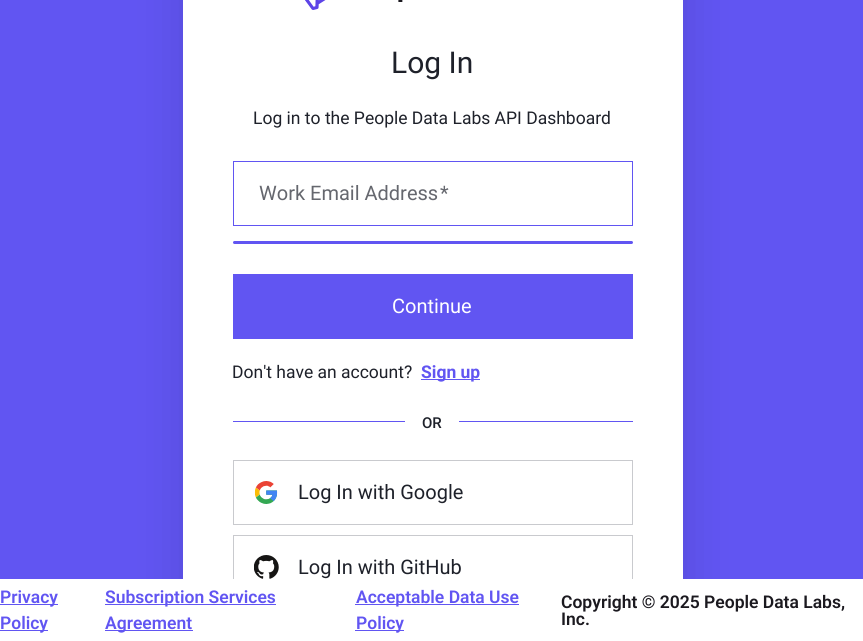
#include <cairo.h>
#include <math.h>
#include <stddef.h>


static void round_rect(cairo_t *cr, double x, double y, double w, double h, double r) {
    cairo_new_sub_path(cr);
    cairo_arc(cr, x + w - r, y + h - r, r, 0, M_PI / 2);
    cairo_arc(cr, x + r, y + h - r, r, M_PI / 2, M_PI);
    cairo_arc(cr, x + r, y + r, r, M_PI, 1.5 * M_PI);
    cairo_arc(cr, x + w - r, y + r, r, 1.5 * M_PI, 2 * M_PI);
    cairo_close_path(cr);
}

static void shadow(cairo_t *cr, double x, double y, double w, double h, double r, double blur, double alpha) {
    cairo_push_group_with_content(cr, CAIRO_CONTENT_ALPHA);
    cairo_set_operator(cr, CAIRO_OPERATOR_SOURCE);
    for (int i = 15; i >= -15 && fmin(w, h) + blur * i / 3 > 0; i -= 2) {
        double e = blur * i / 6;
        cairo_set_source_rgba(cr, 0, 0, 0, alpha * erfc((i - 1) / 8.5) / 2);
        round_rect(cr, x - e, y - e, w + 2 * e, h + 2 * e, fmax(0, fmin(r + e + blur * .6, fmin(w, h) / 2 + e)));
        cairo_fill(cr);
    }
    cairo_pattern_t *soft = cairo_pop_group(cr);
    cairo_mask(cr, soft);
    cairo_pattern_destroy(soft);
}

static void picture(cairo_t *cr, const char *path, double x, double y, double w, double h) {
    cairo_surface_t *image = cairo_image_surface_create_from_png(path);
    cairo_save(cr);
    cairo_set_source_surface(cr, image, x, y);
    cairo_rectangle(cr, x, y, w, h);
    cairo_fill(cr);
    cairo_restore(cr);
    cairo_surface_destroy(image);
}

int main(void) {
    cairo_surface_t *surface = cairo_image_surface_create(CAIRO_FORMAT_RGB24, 863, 641);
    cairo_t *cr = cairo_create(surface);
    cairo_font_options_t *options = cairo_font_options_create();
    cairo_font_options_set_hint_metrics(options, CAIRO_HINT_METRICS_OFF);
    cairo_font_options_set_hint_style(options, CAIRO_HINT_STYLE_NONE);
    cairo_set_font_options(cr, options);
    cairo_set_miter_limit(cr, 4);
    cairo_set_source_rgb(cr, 0.38, 0.333, 0.949);
    cairo_paint(cr);
    cairo_set_source_rgb(cr, 0, 0, 0);
    shadow(cr, 183, -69, 500, 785, 0, 25, 0.12);
    cairo_set_source_rgb(cr, 1, 1, 1);
    cairo_rectangle(cr, 183, 0, 500, 579);
    cairo_fill(cr);
    picture(cr, "img1.png", 305, 0, 98, 10);
    cairo_select_font_face(cr, "Roboto", CAIRO_FONT_SLANT_NORMAL, CAIRO_FONT_WEIGHT_NORMAL);
    cairo_set_font_size(cr, 30);
    cairo_set_source_rgb(cr, 0.118, 0.129, 0.165);
    cairo_move_to(cr, 391, 73);
    cairo_show_text(cr, "Log In");
    cairo_set_font_size(cr, 17.5);
    cairo_move_to(cr, 253, 124);
    cairo_show_text(cr, "Log in to the People Data Labs API Dashboard");
    cairo_rectangle(cr, 233.5, 161.5, 399, 64);
    cairo_set_source_rgb(cr, 0.38, 0.333, 0.949);
    cairo_set_line_width(cr, 1);
    cairo_stroke(cr);
    cairo_set_font_size(cr, 20);
    cairo_set_source_rgb(cr, 0.396, 0.404, 0.431);
    cairo_move_to(cr, 259, 200);
    cairo_show_text(cr, "Work Email Address");
    cairo_move_to(cr, 440, 200);
    cairo_show_text(cr, "*");
    cairo_set_source_rgb(cr, 0.38, 0.333, 0.949);
    round_rect(cr, 233, 241, 400, 3, 1.5);
    cairo_fill(cr);
    cairo_rectangle(cr, 233, 274, 400, 65);
    cairo_fill(cr);
    cairo_set_source_rgb(cr, 1, 1, 1);
    cairo_move_to(cr, 392, 313);
    cairo_show_text(cr, "Continue");
    cairo_set_font_size(cr, 17.5);
    cairo_set_source_rgb(cr, 0.118, 0.129, 0.165);
    cairo_move_to(cr, 232, 378);
    cairo_show_text(cr, "Don't have an account?");
    cairo_set_source_rgb(cr, 0.38, 0.333, 0.949);
    cairo_rectangle(cr, 421, 379, 59, 1);
    cairo_fill(cr);
    cairo_select_font_face(cr, "Roboto", CAIRO_FONT_SLANT_NORMAL, CAIRO_FONT_WEIGHT_BOLD);
    cairo_move_to(cr, 421, 378);
    cairo_show_text(cr, "Sign up");
    cairo_rectangle(cr, 233, 421, 172, 1);
    cairo_fill(cr);
    cairo_select_font_face(cr, "Roboto Medium", CAIRO_FONT_SLANT_NORMAL, CAIRO_FONT_WEIGHT_NORMAL);
    cairo_set_font_size(cr, 15);
    cairo_set_source_rgb(cr, 0.118, 0.129, 0.165);
    cairo_move_to(cr, 422, 428);
    cairo_show_text(cr, "OR");
    cairo_set_source_rgb(cr, 0.38, 0.333, 0.949);
    cairo_rectangle(cr, 459, 421, 174, 1);
    cairo_fill(cr);
    cairo_rectangle(cr, 233.5, 460.5, 399, 64);
    cairo_set_source_rgb(cr, 0.788, 0.792, 0.808);
    cairo_stroke(cr);
    picture(cr, "img2.png", 254, 481, 24, 23);
    cairo_select_font_face(cr, "Roboto", CAIRO_FONT_SLANT_NORMAL, CAIRO_FONT_WEIGHT_NORMAL);
    cairo_set_font_size(cr, 20);
    cairo_set_source_rgb(cr, 0.118, 0.129, 0.165);
    cairo_move_to(cr, 298, 499);
    cairo_show_text(cr, "Log In with Google");
    cairo_rectangle(cr, 233.5, 535.5, 399, 64);
    cairo_set_source_rgb(cr, 0.788, 0.792, 0.808);
    cairo_stroke(cr);
    picture(cr, "img3.png", 254, 555, 25, 24);
    cairo_set_source_rgb(cr, 0.118, 0.129, 0.165);
    cairo_move_to(cr, 298, 574);
    cairo_show_text(cr, "Log In with GitHub");
    cairo_set_source_rgb(cr, 1, 1, 1);
    cairo_rectangle(cr, 0, 579, 863, 62);
    cairo_fill(cr);
    cairo_set_source_rgb(cr, 0.38, 0.333, 0.949);
    cairo_rectangle(cr, 0, 604, 58, 1);
    cairo_fill(cr);
    cairo_select_font_face(cr, "Roboto SemiBold", CAIRO_FONT_SLANT_NORMAL, CAIRO_FONT_WEIGHT_NORMAL);
    cairo_set_font_size(cr, 17.5);
    cairo_move_to(cr, 0, 603);
    cairo_show_text(cr, "Privacy");
    cairo_rectangle(cr, 0, 630, 48, 1);
    cairo_fill(cr);
    cairo_move_to(cr, 0, 629);
    cairo_show_text(cr, "Policy");
    cairo_rectangle(cr, 105, 604, 171, 1);
    cairo_fill(cr);
    cairo_move_to(cr, 105, 603);
    cairo_show_text(cr, "Subscription Services");
    cairo_rectangle(cr, 105, 630, 88, 1);
    cairo_fill(cr);
    cairo_move_to(cr, 105, 629);
    cairo_show_text(cr, "Agreement");
    cairo_rectangle(cr, 355, 604, 164, 1);
    cairo_fill(cr);
    cairo_move_to(cr, 356, 603);
    cairo_show_text(cr, "Acceptable Data Use");
    cairo_rectangle(cr, 355, 630, 49, 1);
    cairo_fill(cr);
    cairo_move_to(cr, 356, 629);
    cairo_show_text(cr, "Policy");
    cairo_set_source_rgb(cr, 0.106, 0.098, 0.122);
    cairo_move_to(cr, 561, 608);
    cairo_show_text(cr, "Copyright © 2025 People Data Labs,");
    cairo_move_to(cr, 561, 625);
    cairo_show_text(cr, "Inc.");
    cairo_surface_write_to_png(surface, "page.png");
    cairo_font_options_destroy(options);
    cairo_destroy(cr);
    cairo_surface_destroy(surface);
    return 0;
}
